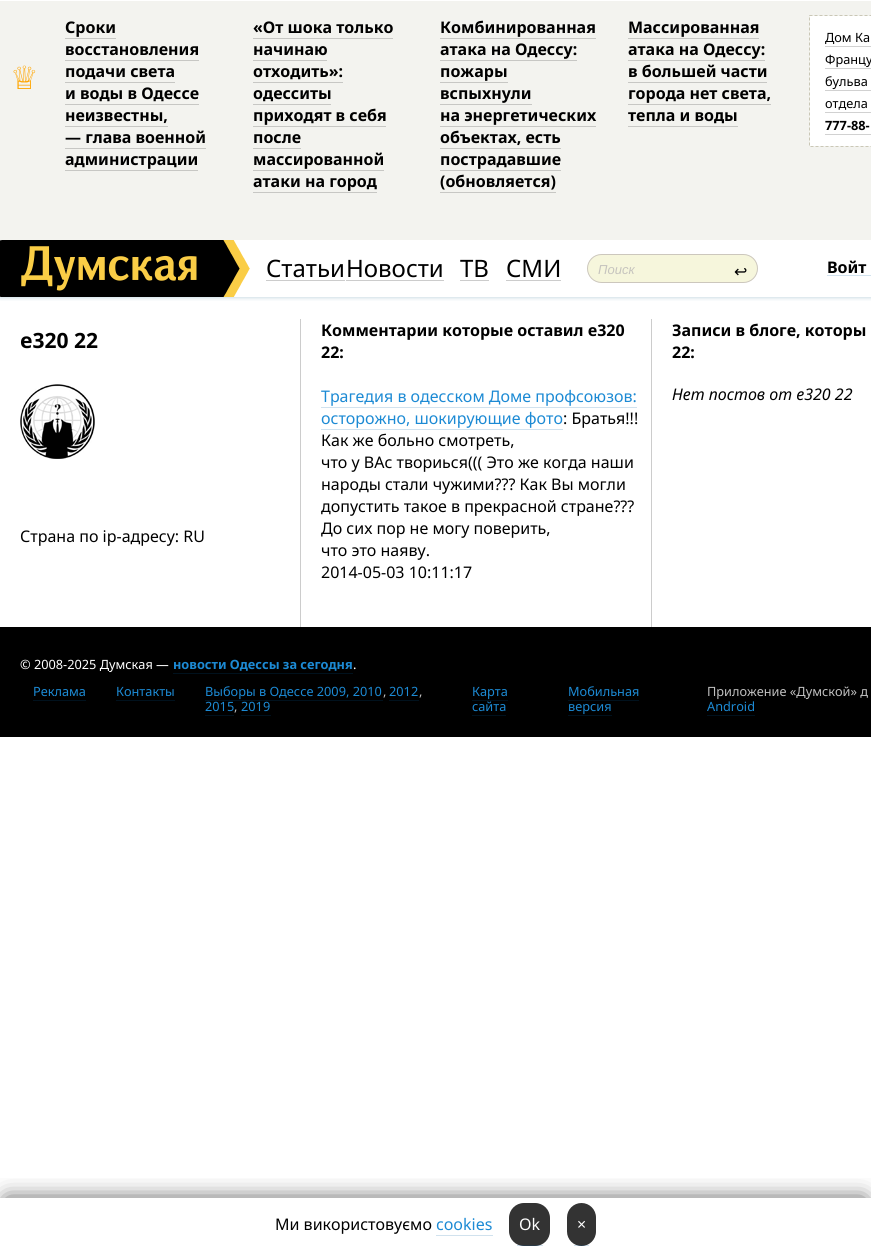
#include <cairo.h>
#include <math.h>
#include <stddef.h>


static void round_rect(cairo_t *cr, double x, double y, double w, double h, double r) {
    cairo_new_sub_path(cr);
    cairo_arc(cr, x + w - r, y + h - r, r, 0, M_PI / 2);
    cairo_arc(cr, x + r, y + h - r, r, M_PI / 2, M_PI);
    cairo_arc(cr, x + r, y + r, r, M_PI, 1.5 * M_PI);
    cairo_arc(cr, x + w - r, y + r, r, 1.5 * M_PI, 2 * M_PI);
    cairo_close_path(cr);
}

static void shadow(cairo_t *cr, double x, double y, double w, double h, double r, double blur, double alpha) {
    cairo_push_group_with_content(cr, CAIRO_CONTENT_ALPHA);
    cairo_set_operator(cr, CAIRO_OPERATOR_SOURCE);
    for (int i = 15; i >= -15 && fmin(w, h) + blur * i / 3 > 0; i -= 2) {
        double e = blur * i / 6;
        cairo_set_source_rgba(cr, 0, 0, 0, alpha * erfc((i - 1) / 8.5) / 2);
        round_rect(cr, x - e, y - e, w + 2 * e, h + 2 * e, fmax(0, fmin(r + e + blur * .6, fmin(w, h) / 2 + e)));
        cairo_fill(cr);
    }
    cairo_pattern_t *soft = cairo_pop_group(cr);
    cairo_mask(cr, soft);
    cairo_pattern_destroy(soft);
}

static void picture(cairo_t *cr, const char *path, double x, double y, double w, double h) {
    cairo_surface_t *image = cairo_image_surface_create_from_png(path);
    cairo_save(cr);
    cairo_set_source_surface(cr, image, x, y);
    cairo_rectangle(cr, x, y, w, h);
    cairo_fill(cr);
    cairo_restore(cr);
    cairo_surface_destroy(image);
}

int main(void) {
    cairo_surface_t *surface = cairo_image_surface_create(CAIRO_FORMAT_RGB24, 871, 1248);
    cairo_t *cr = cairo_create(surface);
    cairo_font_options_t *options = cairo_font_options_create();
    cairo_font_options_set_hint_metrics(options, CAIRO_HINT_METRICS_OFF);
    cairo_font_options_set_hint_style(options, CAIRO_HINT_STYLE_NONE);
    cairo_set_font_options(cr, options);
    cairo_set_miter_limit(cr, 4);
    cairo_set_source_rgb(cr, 1, 1, 1);
    cairo_paint(cr);
    cairo_save(cr);
    cairo_rectangle(cr, 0, 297, 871, 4);
    cairo_clip(cr);
    cairo_set_source_rgb(cr, 0, 0.31, 0.478);
    shadow(cr, 0, 240, 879, 57, 0, 2.5, 0.3);
    cairo_restore(cr);
    cairo_set_source_rgb(cr, 0.953, 0.953, 0.937);
    cairo_rectangle(cr, 0, 1, 871, 239);
    cairo_fill(cr);
    cairo_select_font_face(cr, "DejaVu Sans", CAIRO_FONT_SLANT_NORMAL, CAIRO_FONT_WEIGHT_NORMAL);
    cairo_set_font_size(cr, 32);
    cairo_set_source_rgb(cr, 1, 0.647, 0);
    cairo_move_to(cr, 10, 89);
    cairo_show_text(cr, "♕");
    cairo_select_font_face(cr, "Noto Sans", CAIRO_FONT_SLANT_NORMAL, CAIRO_FONT_WEIGHT_BOLD);
    cairo_set_font_size(cr, 16);
    cairo_set_source_rgb(cr, 0, 0, 0);
    cairo_move_to(cr, 65, 33);
    cairo_show_text(cr, "Сроки");
    cairo_set_source_rgb(cr, 0.78, 0.78, 0.769);
    cairo_rectangle(cr, 65, 38, 51, 1);
    cairo_fill(cr);
    cairo_set_source_rgb(cr, 0, 0, 0);
    cairo_move_to(cr, 65, 55);
    cairo_show_text(cr, "восстановления");
    cairo_set_source_rgb(cr, 0.78, 0.78, 0.769);
    cairo_rectangle(cr, 65, 60, 134, 1);
    cairo_fill(cr);
    cairo_set_source_rgb(cr, 0, 0, 0);
    cairo_move_to(cr, 65, 77);
    cairo_show_text(cr, "подачи света");
    cairo_set_source_rgb(cr, 0.78, 0.78, 0.769);
    cairo_rectangle(cr, 65, 82, 110, 1);
    cairo_fill(cr);
    cairo_set_source_rgb(cr, 0, 0, 0);
    cairo_move_to(cr, 65, 99);
    cairo_show_text(cr, "и воды в Одессе");
    cairo_set_source_rgb(cr, 0.78, 0.78, 0.769);
    cairo_rectangle(cr, 65, 104, 134, 1);
    cairo_fill(cr);
    cairo_set_source_rgb(cr, 0, 0, 0);
    cairo_move_to(cr, 65, 121);
    cairo_show_text(cr, "неизвестны,");
    cairo_set_source_rgb(cr, 0.78, 0.78, 0.769);
    cairo_rectangle(cr, 65, 126, 103, 1);
    cairo_fill(cr);
    cairo_set_source_rgb(cr, 0, 0, 0);
    cairo_move_to(cr, 65, 143);
    cairo_show_text(cr, "— глава военной");
    cairo_set_source_rgb(cr, 0.78, 0.78, 0.769);
    cairo_rectangle(cr, 65, 148, 141, 1);
    cairo_fill(cr);
    cairo_set_source_rgb(cr, 0, 0, 0);
    cairo_move_to(cr, 65, 165);
    cairo_show_text(cr, "администрации");
    cairo_set_source_rgb(cr, 0.78, 0.78, 0.769);
    cairo_rectangle(cr, 65, 170, 133, 1);
    cairo_fill(cr);
    cairo_set_source_rgb(cr, 0, 0, 0);
    cairo_move_to(cr, 253, 33);
    cairo_show_text(cr, "«От шока только");
    cairo_set_source_rgb(cr, 0.78, 0.78, 0.769);
    cairo_rectangle(cr, 253, 38, 140, 1);
    cairo_fill(cr);
    cairo_set_source_rgb(cr, 0, 0, 0);
    cairo_move_to(cr, 253, 55);
    cairo_show_text(cr, "начинаю");
    cairo_set_source_rgb(cr, 0.78, 0.78, 0.769);
    cairo_rectangle(cr, 253, 60, 74, 1);
    cairo_fill(cr);
    cairo_set_source_rgb(cr, 0, 0, 0);
    cairo_move_to(cr, 253, 77);
    cairo_show_text(cr, "отходить»:");
    cairo_set_source_rgb(cr, 0.78, 0.78, 0.769);
    cairo_rectangle(cr, 253, 82, 90, 1);
    cairo_fill(cr);
    cairo_set_source_rgb(cr, 0, 0, 0);
    cairo_move_to(cr, 253, 99);
    cairo_show_text(cr, "одесситы");
    cairo_set_source_rgb(cr, 0.78, 0.78, 0.769);
    cairo_rectangle(cr, 253, 104, 78, 1);
    cairo_fill(cr);
    cairo_set_source_rgb(cr, 0, 0, 0);
    cairo_move_to(cr, 253, 121);
    cairo_show_text(cr, "приходят в себя");
    cairo_set_source_rgb(cr, 0.78, 0.78, 0.769);
    cairo_rectangle(cr, 253, 126, 133, 1);
    cairo_fill(cr);
    cairo_set_source_rgb(cr, 0, 0, 0);
    cairo_move_to(cr, 253, 143);
    cairo_show_text(cr, "после");
    cairo_set_source_rgb(cr, 0.78, 0.78, 0.769);
    cairo_rectangle(cr, 253, 148, 48, 1);
    cairo_fill(cr);
    cairo_set_source_rgb(cr, 0, 0, 0);
    cairo_move_to(cr, 253, 165);
    cairo_show_text(cr, "массированной");
    cairo_set_source_rgb(cr, 0.78, 0.78, 0.769);
    cairo_rectangle(cr, 253, 170, 131, 1);
    cairo_fill(cr);
    cairo_set_source_rgb(cr, 0, 0, 0);
    cairo_move_to(cr, 253, 187);
    cairo_show_text(cr, "атаки на город");
    cairo_set_source_rgb(cr, 0.78, 0.78, 0.769);
    cairo_rectangle(cr, 253, 192, 124, 1);
    cairo_fill(cr);
    cairo_set_source_rgb(cr, 0, 0, 0);
    cairo_move_to(cr, 440, 33);
    cairo_show_text(cr, "Комбинированная");
    cairo_set_source_rgb(cr, 0.78, 0.78, 0.769);
    cairo_rectangle(cr, 440, 38, 156, 1);
    cairo_fill(cr);
    cairo_set_source_rgb(cr, 0, 0, 0);
    cairo_move_to(cr, 440, 55);
    cairo_show_text(cr, "атака на Одессу:");
    cairo_set_source_rgb(cr, 0.78, 0.78, 0.769);
    cairo_rectangle(cr, 440, 60, 137, 1);
    cairo_fill(cr);
    cairo_set_source_rgb(cr, 0, 0, 0);
    cairo_move_to(cr, 440, 77);
    cairo_show_text(cr, "пожары");
    cairo_set_source_rgb(cr, 0.78, 0.78, 0.769);
    cairo_rectangle(cr, 440, 82, 68, 1);
    cairo_fill(cr);
    cairo_set_source_rgb(cr, 0, 0, 0);
    cairo_move_to(cr, 440, 99);
    cairo_show_text(cr, "вспыхнули");
    cairo_set_source_rgb(cr, 0.78, 0.78, 0.769);
    cairo_rectangle(cr, 440, 104, 92, 1);
    cairo_fill(cr);
    cairo_set_source_rgb(cr, 0, 0, 0);
    cairo_move_to(cr, 440, 121);
    cairo_show_text(cr, "на энергетических");
    cairo_set_source_rgb(cr, 0.78, 0.78, 0.769);
    cairo_rectangle(cr, 440, 126, 156, 1);
    cairo_fill(cr);
    cairo_set_source_rgb(cr, 0, 0, 0);
    cairo_move_to(cr, 440, 143);
    cairo_show_text(cr, "объектах, есть");
    cairo_set_source_rgb(cr, 0.78, 0.78, 0.769);
    cairo_rectangle(cr, 440, 148, 121, 1);
    cairo_fill(cr);
    cairo_set_source_rgb(cr, 0, 0, 0);
    cairo_move_to(cr, 440, 165);
    cairo_show_text(cr, "пострадавшие");
    cairo_set_source_rgb(cr, 0.78, 0.78, 0.769);
    cairo_rectangle(cr, 440, 170, 121, 1);
    cairo_fill(cr);
    cairo_set_source_rgb(cr, 0, 0, 0);
    cairo_move_to(cr, 440, 187);
    cairo_show_text(cr, "(обновляется)");
    cairo_set_source_rgb(cr, 0.78, 0.78, 0.769);
    cairo_rectangle(cr, 440, 192, 116, 1);
    cairo_fill(cr);
    cairo_set_source_rgb(cr, 0, 0, 0);
    cairo_move_to(cr, 628, 33);
    cairo_show_text(cr, "Массированная");
    cairo_set_source_rgb(cr, 0.78, 0.78, 0.769);
    cairo_rectangle(cr, 628, 38, 131, 1);
    cairo_fill(cr);
    cairo_set_source_rgb(cr, 0, 0, 0);
    cairo_move_to(cr, 628, 55);
    cairo_show_text(cr, "атака на Одессу:");
    cairo_set_source_rgb(cr, 0.78, 0.78, 0.769);
    cairo_rectangle(cr, 628, 60, 137, 1);
    cairo_fill(cr);
    cairo_set_source_rgb(cr, 0, 0, 0);
    cairo_move_to(cr, 628, 77);
    cairo_show_text(cr, "в большей части");
    cairo_set_source_rgb(cr, 0.78, 0.78, 0.769);
    cairo_rectangle(cr, 628, 82, 139, 1);
    cairo_fill(cr);
    cairo_set_source_rgb(cr, 0, 0, 0);
    cairo_move_to(cr, 628, 99);
    cairo_show_text(cr, "города нет света,");
    cairo_set_source_rgb(cr, 0.78, 0.78, 0.769);
    cairo_rectangle(cr, 628, 104, 143, 1);
    cairo_fill(cr);
    cairo_set_source_rgb(cr, 0, 0, 0);
    cairo_move_to(cr, 628, 121);
    cairo_show_text(cr, "тепла и воды");
    cairo_set_source_rgb(cr, 0.78, 0.78, 0.769);
    cairo_rectangle(cr, 628, 126, 110, 1);
    cairo_fill(cr);
    cairo_set_source_rgb(cr, 1, 1, 1);
    cairo_rectangle(cr, 810, 16, 61, 130);
    cairo_fill(cr);
    cairo_select_font_face(cr, "Noto Sans", CAIRO_FONT_SLANT_NORMAL, CAIRO_FONT_WEIGHT_NORMAL);
    cairo_set_font_size(cr, 12.75);
    cairo_set_source_rgb(cr, 0, 0, 0);
    cairo_move_to(cr, 825, 42);
    cairo_show_text(cr, "Дом Ка");
    cairo_set_source_rgb(cr, 0.82, 0.82, 0.82);
    cairo_rectangle(cr, 825, 46, 46, 1);
    cairo_fill(cr);
    cairo_set_source_rgb(cr, 0, 0, 0);
    cairo_move_to(cr, 825, 64);
    cairo_show_text(cr, "Францу");
    cairo_set_source_rgb(cr, 0.82, 0.82, 0.82);
    cairo_rectangle(cr, 825, 68, 46, 1);
    cairo_fill(cr);
    cairo_set_source_rgb(cr, 0, 0, 0);
    cairo_move_to(cr, 825, 86);
    cairo_show_text(cr, "бульва");
    cairo_set_source_rgb(cr, 0.82, 0.82, 0.82);
    cairo_rectangle(cr, 825, 90, 46, 1);
    cairo_fill(cr);
    cairo_set_source_rgb(cr, 0, 0, 0);
    cairo_move_to(cr, 825, 108);
    cairo_show_text(cr, "отдела");
    cairo_set_source_rgb(cr, 0.82, 0.82, 0.82);
    cairo_rectangle(cr, 825, 112, 46, 1);
    cairo_fill(cr);
    cairo_select_font_face(cr, "Noto Sans", CAIRO_FONT_SLANT_NORMAL, CAIRO_FONT_WEIGHT_BOLD);
    cairo_set_source_rgb(cr, 0, 0, 0);
    cairo_move_to(cr, 825, 130);
    cairo_show_text(cr, "777-88-");
    cairo_set_source_rgb(cr, 0.82, 0.82, 0.82);
    cairo_rectangle(cr, 825, 134, 46, 1);
    cairo_fill(cr);
    cairo_new_path(cr);
    cairo_move_to(cr, 809.5, 15.5);
    cairo_line_to(cr, 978.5, 15.5);
    cairo_line_to(cr, 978.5, 146.5);
    cairo_line_to(cr, 809.5, 146.5);
    cairo_close_path(cr);
    cairo_set_source_rgb(cr, 0.792, 0.78, 0.714);
    cairo_set_line_width(cr, 1);
    cairo_set_dash(cr, (double[]){3, 2}, 2, 0);
    cairo_stroke(cr);
    picture(cr, "img1.png", 0, 240, 250, 57);
    cairo_set_source_rgb(cr, 0.8, 0.8, 0.8);
    cairo_rectangle(cr, 266, 280, 79, 1);
    cairo_fill(cr);
    cairo_select_font_face(cr, "Noto Sans", CAIRO_FONT_SLANT_NORMAL, CAIRO_FONT_WEIGHT_NORMAL);
    cairo_set_font_size(cr, 24);
    cairo_set_source_rgb(cr, 0, 0, 0);
    cairo_move_to(cr, 266, 277);
    cairo_show_text(cr, "Статьи");
    cairo_set_source_rgb(cr, 0.8, 0.8, 0.8);
    cairo_rectangle(cr, 346, 280, 98, 1);
    cairo_fill(cr);
    cairo_set_source_rgb(cr, 0, 0, 0);
    cairo_move_to(cr, 346, 277);
    cairo_show_text(cr, "Новости");
    cairo_set_source_rgb(cr, 0.8, 0.8, 0.8);
    cairo_rectangle(cr, 460, 280, 29, 1);
    cairo_fill(cr);
    cairo_set_source_rgb(cr, 0, 0, 0);
    cairo_move_to(cr, 460, 277);
    cairo_show_text(cr, "ТВ");
    cairo_set_source_rgb(cr, 0.8, 0.8, 0.8);
    cairo_rectangle(cr, 506, 280, 55, 1);
    cairo_fill(cr);
    cairo_set_source_rgb(cr, 0, 0, 0);
    cairo_move_to(cr, 506, 277);
    cairo_show_text(cr, "СМИ");
    cairo_set_source_rgb(cr, 0.961, 0.961, 0.863);
    round_rect(cr, 587.5, 254.5, 170, 28, 14);
    cairo_fill_preserve(cr);
    cairo_set_source_rgb(cr, 0.8, 0.78, 0.741);
    cairo_set_dash(cr, NULL, 0, 0);
    cairo_stroke(cr);
    cairo_select_font_face(cr, "Liberation Sans", CAIRO_FONT_SLANT_ITALIC, CAIRO_FONT_WEIGHT_NORMAL);
    cairo_set_font_size(cr, 13);
    cairo_set_source_rgb(cr, 0.776, 0.769, 0.745);
    cairo_move_to(cr, 598, 274);
    cairo_show_text(cr, "Поиск");
    cairo_select_font_face(cr, "DejaVu Sans", CAIRO_FONT_SLANT_NORMAL, CAIRO_FONT_WEIGHT_NORMAL);
    cairo_set_font_size(cr, 16);
    cairo_set_source_rgb(cr, 0, 0, 0);
    cairo_move_to(cr, 734, 277);
    cairo_show_text(cr, "↩");
    cairo_set_source_rgb(cr, 0.82, 0.886, 0.933);
    cairo_rectangle(cr, 827, 275, 44, 1);
    cairo_fill(cr);
    cairo_select_font_face(cr, "Noto Sans", CAIRO_FONT_SLANT_NORMAL, CAIRO_FONT_WEIGHT_BOLD);
    cairo_set_source_rgb(cr, 0, 0, 0);
    cairo_move_to(cr, 827, 273);
    cairo_show_text(cr, "Войт");
    cairo_set_source_rgb(cr, 0.8, 0.8, 0.8);
    cairo_rectangle(cr, 300, 319, 1, 309);
    cairo_fill(cr);
    cairo_set_font_size(cr, 21);
    cairo_set_source_rgb(cr, 0, 0, 0);
    cairo_move_to(cr, 20, 348);
    cairo_show_text(cr, "e320 22");
    picture(cr, "img2.png", 20, 384, 75, 75);
    cairo_select_font_face(cr, "Noto Sans", CAIRO_FONT_SLANT_NORMAL, CAIRO_FONT_WEIGHT_NORMAL);
    cairo_set_font_size(cr, 16);
    cairo_move_to(cr, 20, 542);
    cairo_show_text(cr, "Страна по ip-адресу: RU");
    cairo_set_source_rgb(cr, 0.8, 0.8, 0.8);
    cairo_rectangle(cr, 651, 319, 1, 309);
    cairo_fill(cr);
    cairo_select_font_face(cr, "Noto Sans", CAIRO_FONT_SLANT_NORMAL, CAIRO_FONT_WEIGHT_BOLD);
    cairo_set_source_rgb(cr, 0, 0, 0);
    cairo_move_to(cr, 321, 336);
    cairo_show_text(cr, "Комментарии которые оставил e320");
    cairo_move_to(cr, 321, 358);
    cairo_show_text(cr, "22:");
    cairo_select_font_face(cr, "Noto Sans", CAIRO_FONT_SLANT_NORMAL, CAIRO_FONT_WEIGHT_NORMAL);
    cairo_set_source_rgb(cr, 0.11, 0.541, 0.831);
    cairo_move_to(cr, 321, 402);
    cairo_show_text(cr, "Трагедия в одесском Доме профсоюзов:");
    cairo_set_source_rgb(cr, 0.82, 0.886, 0.933);
    cairo_rectangle(cr, 321, 407, 316, 1);
    cairo_fill(cr);
    cairo_set_source_rgb(cr, 0.11, 0.541, 0.831);
    cairo_move_to(cr, 321, 424);
    cairo_show_text(cr, "осторожно, шокирующие фото");
    cairo_set_source_rgb(cr, 0.82, 0.886, 0.933);
    cairo_rectangle(cr, 321, 429, 242, 1);
    cairo_fill(cr);
    cairo_set_source_rgb(cr, 0, 0, 0);
    cairo_move_to(cr, 563, 424);
    cairo_show_text(cr, ": Братья!!!");
    cairo_move_to(cr, 321, 446);
    cairo_show_text(cr, "Как же больно смотреть,");
    cairo_move_to(cr, 321, 468);
    cairo_show_text(cr, "что у ВАс твориься((( Это же когда наши");
    cairo_move_to(cr, 321, 490);
    cairo_show_text(cr, "народы стали чужими?\077? Как Вы могли");
    cairo_move_to(cr, 321, 512);
    cairo_show_text(cr, "допустить такое в прекрасной стране?\077?");
    cairo_move_to(cr, 321, 534);
    cairo_show_text(cr, "До сих пор не могу поверить,");
    cairo_move_to(cr, 321, 556);
    cairo_show_text(cr, "что это наяву.");
    cairo_move_to(cr, 321, 578);
    cairo_show_text(cr, "2014-05-03 10:11:17");
    cairo_select_font_face(cr, "Noto Sans", CAIRO_FONT_SLANT_NORMAL, CAIRO_FONT_WEIGHT_BOLD);
    cairo_move_to(cr, 672, 336);
    cairo_show_text(cr, "Записи в блоге, которы");
    cairo_move_to(cr, 672, 358);
    cairo_show_text(cr, "22:");
    cairo_select_font_face(cr, "Noto Sans", CAIRO_FONT_SLANT_ITALIC, CAIRO_FONT_WEIGHT_NORMAL);
    cairo_move_to(cr, 672, 400);
    cairo_show_text(cr, "Нет постов от e320 22");
    cairo_rectangle(cr, 0, 627, 871, 110);
    cairo_fill(cr);
    cairo_select_font_face(cr, "Noto Sans", CAIRO_FONT_SLANT_NORMAL, CAIRO_FONT_WEIGHT_NORMAL);
    cairo_set_font_size(cr, 12.75);
    cairo_set_source_rgb(cr, 1, 1, 1);
    cairo_move_to(cr, 20, 669);
    cairo_show_text(cr, "© 2008-2025 Думская —");
    cairo_select_font_face(cr, "Noto Sans", CAIRO_FONT_SLANT_NORMAL, CAIRO_FONT_WEIGHT_BOLD);
    cairo_set_source_rgb(cr, 0.11, 0.541, 0.831);
    cairo_move_to(cr, 173, 669);
    cairo_show_text(cr, "новости Одессы за сегодня");
    cairo_set_source_rgb(cr, 0, 0.067, 0.114);
    cairo_rectangle(cr, 173, 673, 180, 1);
    cairo_fill(cr);
    cairo_select_font_face(cr, "Noto Sans", CAIRO_FONT_SLANT_NORMAL, CAIRO_FONT_WEIGHT_NORMAL);
    cairo_set_source_rgb(cr, 1, 1, 1);
    cairo_move_to(cr, 353, 669);
    cairo_show_text(cr, ".");
    cairo_set_source_rgb(cr, 0.11, 0.541, 0.831);
    cairo_move_to(cr, 33, 696);
    cairo_show_text(cr, "Реклама");
    cairo_set_source_rgb(cr, 0, 0.067, 0.114);
    cairo_rectangle(cr, 33, 700, 53, 1);
    cairo_fill(cr);
    cairo_set_source_rgb(cr, 0.11, 0.541, 0.831);
    cairo_move_to(cr, 116, 696);
    cairo_show_text(cr, "Контакты");
    cairo_set_source_rgb(cr, 0, 0.067, 0.114);
    cairo_rectangle(cr, 116, 700, 59, 1);
    cairo_fill(cr);
    cairo_set_source_rgb(cr, 0.11, 0.541, 0.831);
    cairo_move_to(cr, 205, 696);
    cairo_show_text(cr, "Выборы в Одессе 2009, 2010");
    cairo_set_source_rgb(cr, 0, 0.067, 0.114);
    cairo_rectangle(cr, 205, 700, 178, 1);
    cairo_fill(cr);
    cairo_set_source_rgb(cr, 0.753, 0.753, 0.753);
    cairo_move_to(cr, 383, 696);
    cairo_show_text(cr, ",");
    cairo_set_source_rgb(cr, 0.11, 0.541, 0.831);
    cairo_move_to(cr, 389, 696);
    cairo_show_text(cr, "2012");
    cairo_set_source_rgb(cr, 0, 0.067, 0.114);
    cairo_rectangle(cr, 389, 700, 30, 1);
    cairo_fill(cr);
    cairo_set_source_rgb(cr, 0.753, 0.753, 0.753);
    cairo_move_to(cr, 419, 696);
    cairo_show_text(cr, ",");
    cairo_set_source_rgb(cr, 0.11, 0.541, 0.831);
    cairo_move_to(cr, 205, 711);
    cairo_show_text(cr, "2015");
    cairo_set_source_rgb(cr, 0, 0.067, 0.114);
    cairo_rectangle(cr, 205, 715, 29, 1);
    cairo_fill(cr);
    cairo_set_source_rgb(cr, 0.753, 0.753, 0.753);
    cairo_move_to(cr, 234, 711);
    cairo_show_text(cr, ",");
    cairo_set_source_rgb(cr, 0.11, 0.541, 0.831);
    cairo_move_to(cr, 241, 711);
    cairo_show_text(cr, "2019");
    cairo_set_source_rgb(cr, 0, 0.067, 0.114);
    cairo_rectangle(cr, 241, 715, 30, 1);
    cairo_fill(cr);
    cairo_set_source_rgb(cr, 0.11, 0.541, 0.831);
    cairo_move_to(cr, 472, 696);
    cairo_show_text(cr, "Карта");
    cairo_move_to(cr, 472, 711);
    cairo_show_text(cr, "сайта");
    cairo_set_source_rgb(cr, 0, 0.067, 0.114);
    cairo_rectangle(cr, 472, 700, 36, 1);
    cairo_fill(cr);
    cairo_rectangle(cr, 472, 715, 34, 1);
    cairo_fill(cr);
    cairo_set_source_rgb(cr, 0.11, 0.541, 0.831);
    cairo_move_to(cr, 568, 696);
    cairo_show_text(cr, "Мобильная");
    cairo_set_source_rgb(cr, 0, 0.067, 0.114);
    cairo_rectangle(cr, 568, 700, 71, 1);
    cairo_fill(cr);
    cairo_set_source_rgb(cr, 0.11, 0.541, 0.831);
    cairo_move_to(cr, 568, 711);
    cairo_show_text(cr, "версия");
    cairo_set_source_rgb(cr, 0, 0.067, 0.114);
    cairo_rectangle(cr, 568, 715, 44, 1);
    cairo_fill(cr);
    cairo_set_source_rgb(cr, 0.753, 0.753, 0.753);
    cairo_move_to(cr, 707, 696);
    cairo_show_text(cr, "Приложение «Думской» д");
    cairo_set_source_rgb(cr, 0.11, 0.541, 0.831);
    cairo_move_to(cr, 707, 711);
    cairo_show_text(cr, "Android");
    cairo_set_source_rgb(cr, 0, 0.067, 0.114);
    cairo_rectangle(cr, 707, 715, 48, 1);
    cairo_fill(cr);
    cairo_save(cr);
    cairo_rectangle(cr, 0, 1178, 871, 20);
    cairo_clip(cr);
    cairo_set_source_rgb(cr, 0, 0, 0);
    shadow(cr, 7, 1200, 857, 36, 0, 11.5, 0.75);
    cairo_restore(cr);
    cairo_set_font_size(cr, 16);
    cairo_set_source_rgb(cr, 0, 0, 0);
    cairo_move_to(cr, 275, 1230);
    cairo_show_text(cr, "Ми використовуємо");
    cairo_set_source_rgb(cr, 0.11, 0.541, 0.831);
    cairo_move_to(cr, 436, 1230);
    cairo_show_text(cr, "cookies");
    cairo_set_source_rgb(cr, 0.82, 0.886, 0.933);
    cairo_rectangle(cr, 436, 1235, 57, 1);
    cairo_fill(cr);
    cairo_set_source_rgb(cr, 0.2, 0.2, 0.2);
    round_rect(cr, 509, 1203, 41, 43, 15);
    cairo_fill(cr);
    cairo_set_source_rgb(cr, 1, 1, 1);
    cairo_move_to(cr, 519, 1230);
    cairo_show_text(cr, "Ok");
    cairo_set_source_rgba(cr, 0, 0.361, 0.639, 0.18);
    cairo_rectangle(cr, 517, 1245, 26, 1);
    cairo_fill(cr);
    cairo_set_source_rgb(cr, 0.2, 0.2, 0.2);
    round_rect(cr, 567, 1203, 29, 43, 14.5);
    cairo_fill(cr);
    cairo_set_source_rgb(cr, 1, 1, 1);
    cairo_move_to(cr, 577, 1230);
    cairo_show_text(cr, "×");
    cairo_set_source_rgba(cr, 0, 0.361, 0.639, 0.18);
    cairo_rectangle(cr, 574, 1245, 15, 1);
    cairo_fill(cr);
    cairo_surface_write_to_png(surface, "page.png");
    cairo_font_options_destroy(options);
    cairo_destroy(cr);
    cairo_surface_destroy(surface);
    return 0;
}
